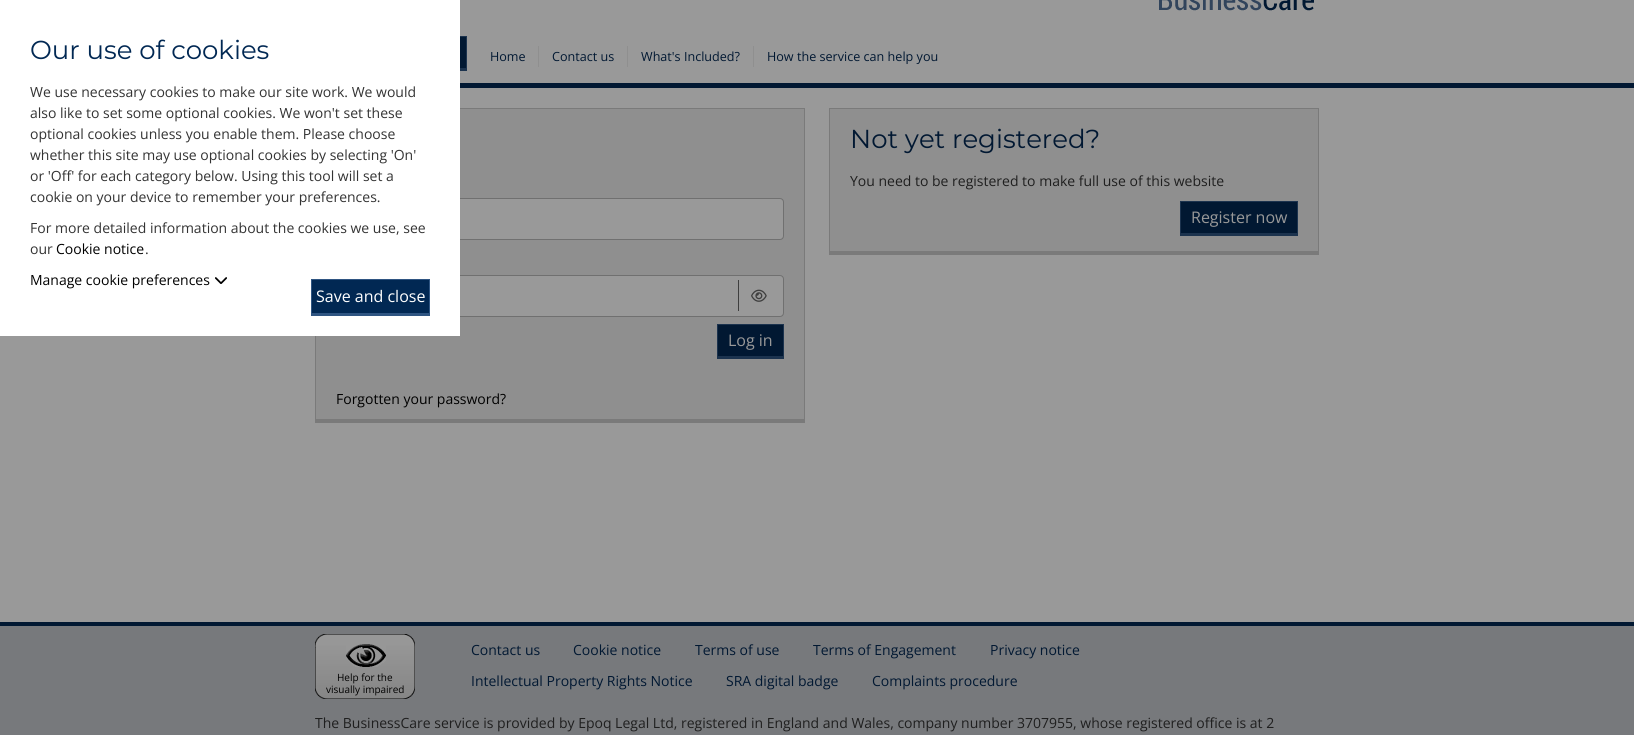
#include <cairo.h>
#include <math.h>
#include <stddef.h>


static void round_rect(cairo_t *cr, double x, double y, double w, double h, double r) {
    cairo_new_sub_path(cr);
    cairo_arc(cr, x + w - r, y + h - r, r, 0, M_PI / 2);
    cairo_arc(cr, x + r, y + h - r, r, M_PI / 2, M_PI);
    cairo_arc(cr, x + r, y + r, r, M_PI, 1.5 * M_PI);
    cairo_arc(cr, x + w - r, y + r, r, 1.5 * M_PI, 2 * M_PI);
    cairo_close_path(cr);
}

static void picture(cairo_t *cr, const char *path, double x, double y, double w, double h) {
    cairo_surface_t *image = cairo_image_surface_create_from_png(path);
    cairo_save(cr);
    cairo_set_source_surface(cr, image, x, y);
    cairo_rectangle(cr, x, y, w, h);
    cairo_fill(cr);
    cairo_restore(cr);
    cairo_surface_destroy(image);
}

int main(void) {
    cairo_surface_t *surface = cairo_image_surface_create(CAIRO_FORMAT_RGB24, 1634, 735);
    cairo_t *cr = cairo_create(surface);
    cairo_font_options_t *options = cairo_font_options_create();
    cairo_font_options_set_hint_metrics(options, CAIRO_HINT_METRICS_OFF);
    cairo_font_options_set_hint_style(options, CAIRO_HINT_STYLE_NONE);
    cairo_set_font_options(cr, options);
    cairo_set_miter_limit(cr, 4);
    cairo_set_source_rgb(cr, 0.6, 0.6, 0.6);
    cairo_paint(cr);
    cairo_set_source_rgb(cr, 0.561, 0.561, 0.561);
    cairo_rectangle(cr, 316, 109, 488, 310);
    cairo_fill(cr);
    cairo_set_source_rgb(cr, 0.6, 0.6, 0.6);
    round_rect(cr, 336.5, 198.5, 447, 41, 3.5);
    cairo_fill_preserve(cr);
    cairo_set_source_rgb(cr, 0.439, 0.439, 0.439);
    cairo_set_line_width(cr, 1);
    cairo_stroke(cr);
    cairo_set_source_rgb(cr, 0.6, 0.6, 0.6);
    round_rect(cr, 336.5, 275.5, 447, 41, 3.5);
    cairo_fill_preserve(cr);
    cairo_set_source_rgb(cr, 0.439, 0.439, 0.439);
    cairo_stroke(cr);
    cairo_set_source_rgb(cr, 1, 1, 1);
    cairo_rectangle(cr, 0, 0, 460, 336);
    cairo_fill(cr);
    cairo_select_font_face(cr, "Montserrat", CAIRO_FONT_SLANT_NORMAL, CAIRO_FONT_WEIGHT_NORMAL);
    cairo_set_font_size(cr, 26);
    cairo_set_source_rgb(cr, 0.004, 0.157, 0.325);
    cairo_move_to(cr, 30, 59);
    cairo_show_text(cr, "Our use of cookies");
    cairo_select_font_face(cr, "Open Sans", CAIRO_FONT_SLANT_NORMAL, CAIRO_FONT_WEIGHT_NORMAL);
    cairo_set_font_size(cr, 14);
    cairo_set_source_rgb(cr, 0.2, 0.2, 0.2);
    cairo_move_to(cr, 30, 97);
    cairo_show_text(cr, "We use necessary cookies to make our site work. We would");
    cairo_move_to(cr, 30, 118);
    cairo_show_text(cr, "also like to set some optional cookies. We won't set these");
    cairo_move_to(cr, 30, 139);
    cairo_show_text(cr, "optional cookies unless you enable them. Please choose");
    cairo_move_to(cr, 30, 160);
    cairo_show_text(cr, "whether this site may use optional cookies by selecting 'On'");
    cairo_move_to(cr, 30, 181);
    cairo_show_text(cr, "or 'Off' for each category below. Using this tool will set a");
    cairo_move_to(cr, 30, 202);
    cairo_show_text(cr, "cookie on your device to remember your preferences.");
    cairo_move_to(cr, 30, 233);
    cairo_show_text(cr, "For more detailed information about the cookies we use, see");
    cairo_move_to(cr, 30, 254);
    cairo_show_text(cr, "our");
    cairo_set_source_rgb(cr, 0, 0, 0);
    cairo_move_to(cr, 56, 254);
    cairo_show_text(cr, "Cookie notice");
    cairo_set_source_rgb(cr, 0.2, 0.2, 0.2);
    cairo_move_to(cr, 145, 254);
    cairo_show_text(cr, ".");
    cairo_set_source_rgb(cr, 0, 0, 0);
    cairo_move_to(cr, 30, 285);
    cairo_show_text(cr, "Manage cookie preferences");
    picture(cr, "img1.png", 215, 277, 12, 7);
    cairo_set_source_rgb(cr, 0.004, 0.157, 0.325);
    cairo_rectangle(cr, 312, 280, 117, 33);
    cairo_fill(cr);
    cairo_set_source_rgb(cr, 0.184, 0.333, 0.51);
    cairo_rectangle(cr, 311, 279, 119, 1);
    cairo_fill(cr);
    cairo_rectangle(cr, 429, 279, 1, 37);
    cairo_fill(cr);
    cairo_rectangle(cr, 311, 313, 119, 3);
    cairo_fill(cr);
    cairo_rectangle(cr, 311, 279, 1, 37);
    cairo_fill(cr);
    cairo_set_font_size(cr, 16);
    cairo_set_source_rgb(cr, 1, 1, 1);
    cairo_move_to(cr, 316, 302);
    cairo_show_text(cr, "Save and close");
    cairo_set_source_rgb(cr, 0.004, 0.094, 0.196);
    cairo_rectangle(cr, 460, 83, 1174, 5);
    cairo_fill(cr);
    picture(cr, "img2.png", 1159, 0, 155, 11);
    cairo_rectangle(cr, 460, 37, 6, 31);
    cairo_fill(cr);
    cairo_set_source_rgb(cr, 0.11, 0.2, 0.306);
    cairo_rectangle(cr, 460, 36, 7, 1);
    cairo_fill(cr);
    cairo_rectangle(cr, 466, 36, 1, 35);
    cairo_fill(cr);
    cairo_rectangle(cr, 460, 68, 7, 3);
    cairo_fill(cr);
    cairo_set_font_size(cr, 12.6);
    cairo_set_source_rgb(cr, 0.004, 0.094, 0.196);
    cairo_move_to(cr, 490, 61);
    cairo_show_text(cr, "Home");
    cairo_set_source_rgb(cr, 0.561, 0.561, 0.561);
    cairo_rectangle(cr, 538, 46, 1, 21);
    cairo_fill(cr);
    cairo_set_source_rgb(cr, 0.004, 0.094, 0.196);
    cairo_move_to(cr, 552, 61);
    cairo_show_text(cr, "Contact us");
    cairo_set_source_rgb(cr, 0.561, 0.561, 0.561);
    cairo_rectangle(cr, 627, 46, 1, 21);
    cairo_fill(cr);
    cairo_set_source_rgb(cr, 0.004, 0.094, 0.196);
    cairo_move_to(cr, 641, 61);
    cairo_show_text(cr, "What's Included?");
    cairo_set_source_rgb(cr, 0.561, 0.561, 0.561);
    cairo_rectangle(cr, 753, 46, 1, 21);
    cairo_fill(cr);
    cairo_set_source_rgb(cr, 0.004, 0.094, 0.196);
    cairo_move_to(cr, 767, 61);
    cairo_show_text(cr, "How the service can help you");
    cairo_set_source_rgb(cr, 0.561, 0.561, 0.561);
    cairo_rectangle(cr, 830, 109, 488, 142);
    cairo_fill(cr);
    cairo_set_source_rgb(cr, 0.478, 0.478, 0.478);
    cairo_rectangle(cr, 829, 108, 490, 1);
    cairo_fill(cr);
    cairo_rectangle(cr, 1318, 108, 1, 147);
    cairo_fill(cr);
    cairo_rectangle(cr, 829, 251, 490, 4);
    cairo_fill(cr);
    cairo_rectangle(cr, 829, 108, 1, 147);
    cairo_fill(cr);
    cairo_select_font_face(cr, "Montserrat", CAIRO_FONT_SLANT_NORMAL, CAIRO_FONT_WEIGHT_NORMAL);
    cairo_set_font_size(cr, 26);
    cairo_set_source_rgb(cr, 0.004, 0.094, 0.196);
    cairo_move_to(cr, 850, 148);
    cairo_show_text(cr, "Not yet registered?");
    cairo_select_font_face(cr, "Open Sans", CAIRO_FONT_SLANT_NORMAL, CAIRO_FONT_WEIGHT_NORMAL);
    cairo_set_font_size(cr, 14);
    cairo_set_source_rgb(cr, 0.122, 0.122, 0.122);
    cairo_move_to(cr, 850, 186);
    cairo_show_text(cr, "You need to be registered to make full use of this website");
    cairo_set_source_rgb(cr, 0.004, 0.094, 0.196);
    cairo_rectangle(cr, 1181, 202, 116, 31);
    cairo_fill(cr);
    cairo_set_source_rgb(cr, 0.11, 0.2, 0.306);
    cairo_rectangle(cr, 1180, 201, 118, 1);
    cairo_fill(cr);
    cairo_rectangle(cr, 1297, 201, 1, 35);
    cairo_fill(cr);
    cairo_rectangle(cr, 1180, 233, 118, 3);
    cairo_fill(cr);
    cairo_rectangle(cr, 1180, 201, 1, 35);
    cairo_fill(cr);
    cairo_set_font_size(cr, 16);
    cairo_set_source_rgb(cr, 0.6, 0.6, 0.6);
    cairo_move_to(cr, 1191, 223);
    cairo_show_text(cr, "Register now");
    cairo_set_source_rgb(cr, 0.478, 0.478, 0.478);
    cairo_rectangle(cr, 460, 108, 345, 1);
    cairo_fill(cr);
    cairo_rectangle(cr, 804, 108, 1, 315);
    cairo_fill(cr);
    cairo_rectangle(cr, 315, 419, 490, 4);
    cairo_fill(cr);
    cairo_rectangle(cr, 315, 336, 1, 87);
    cairo_fill(cr);
    cairo_set_source_rgb(cr, 0.243, 0.243, 0.243);
    cairo_rectangle(cr, 738, 280, 1, 31);
    cairo_fill(cr);
    picture(cr, "img3.png", 751, 289, 16, 13);
    cairo_set_source_rgb(cr, 0.004, 0.094, 0.196);
    cairo_rectangle(cr, 718, 325, 65, 31);
    cairo_fill(cr);
    cairo_set_source_rgb(cr, 0.11, 0.2, 0.306);
    cairo_rectangle(cr, 717, 324, 67, 1);
    cairo_fill(cr);
    cairo_rectangle(cr, 783, 324, 1, 35);
    cairo_fill(cr);
    cairo_rectangle(cr, 717, 356, 67, 3);
    cairo_fill(cr);
    cairo_rectangle(cr, 717, 324, 1, 35);
    cairo_fill(cr);
    cairo_set_source_rgb(cr, 0.6, 0.6, 0.6);
    cairo_move_to(cr, 728, 346);
    cairo_show_text(cr, "Log in");
    cairo_set_font_size(cr, 14);
    cairo_set_source_rgb(cr, 0, 0, 0);
    cairo_move_to(cr, 336, 404);
    cairo_show_text(cr, "Forgotten your password?");
    cairo_set_source_rgb(cr, 0.467, 0.475, 0.486);
    cairo_rectangle(cr, 0, 626, 1634, 109);
    cairo_fill(cr);
    cairo_set_source_rgb(cr, 0.004, 0.094, 0.196);
    cairo_rectangle(cr, 0, 622, 1634, 4);
    cairo_fill(cr);
    picture(cr, "img4.png", 315, 634, 100, 65);
    cairo_set_font_size(cr, 10);
    cairo_set_source_rgb(cr, 0, 0, 0);
    cairo_move_to(cr, 337, 681);
    cairo_show_text(cr, "Help for the");
    cairo_move_to(cr, 326, 693);
    cairo_show_text(cr, "visually impaired");
    cairo_set_font_size(cr, 14);
    cairo_set_source_rgb(cr, 0.004, 0.094, 0.196);
    cairo_move_to(cr, 471, 655);
    cairo_show_text(cr, "Contact us");
    cairo_move_to(cr, 573, 655);
    cairo_show_text(cr, "Cookie notice");
    cairo_move_to(cr, 695, 655);
    cairo_show_text(cr, "Terms of use");
    cairo_move_to(cr, 813, 655);
    cairo_show_text(cr, "Terms of Engagement");
    cairo_move_to(cr, 990, 655);
    cairo_show_text(cr, "Privacy notice");
    cairo_move_to(cr, 471, 686);
    cairo_show_text(cr, "Intellectual Property Rights Notice");
    cairo_move_to(cr, 726, 686);
    cairo_show_text(cr, "SRA digital badge");
    cairo_move_to(cr, 872, 686);
    cairo_show_text(cr, "Complaints procedure");
    cairo_set_source_rgb(cr, 0.122, 0.122, 0.122);
    cairo_move_to(cr, 315, 728);
    cairo_show_text(cr, "The BusinessCare service is provided by Epoq Legal Ltd, registered in England and Wales, company number 3707955, whose registered office is at 2");
    cairo_surface_write_to_png(surface, "page.png");
    cairo_font_options_destroy(options);
    cairo_destroy(cr);
    cairo_surface_destroy(surface);
    return 0;
}
